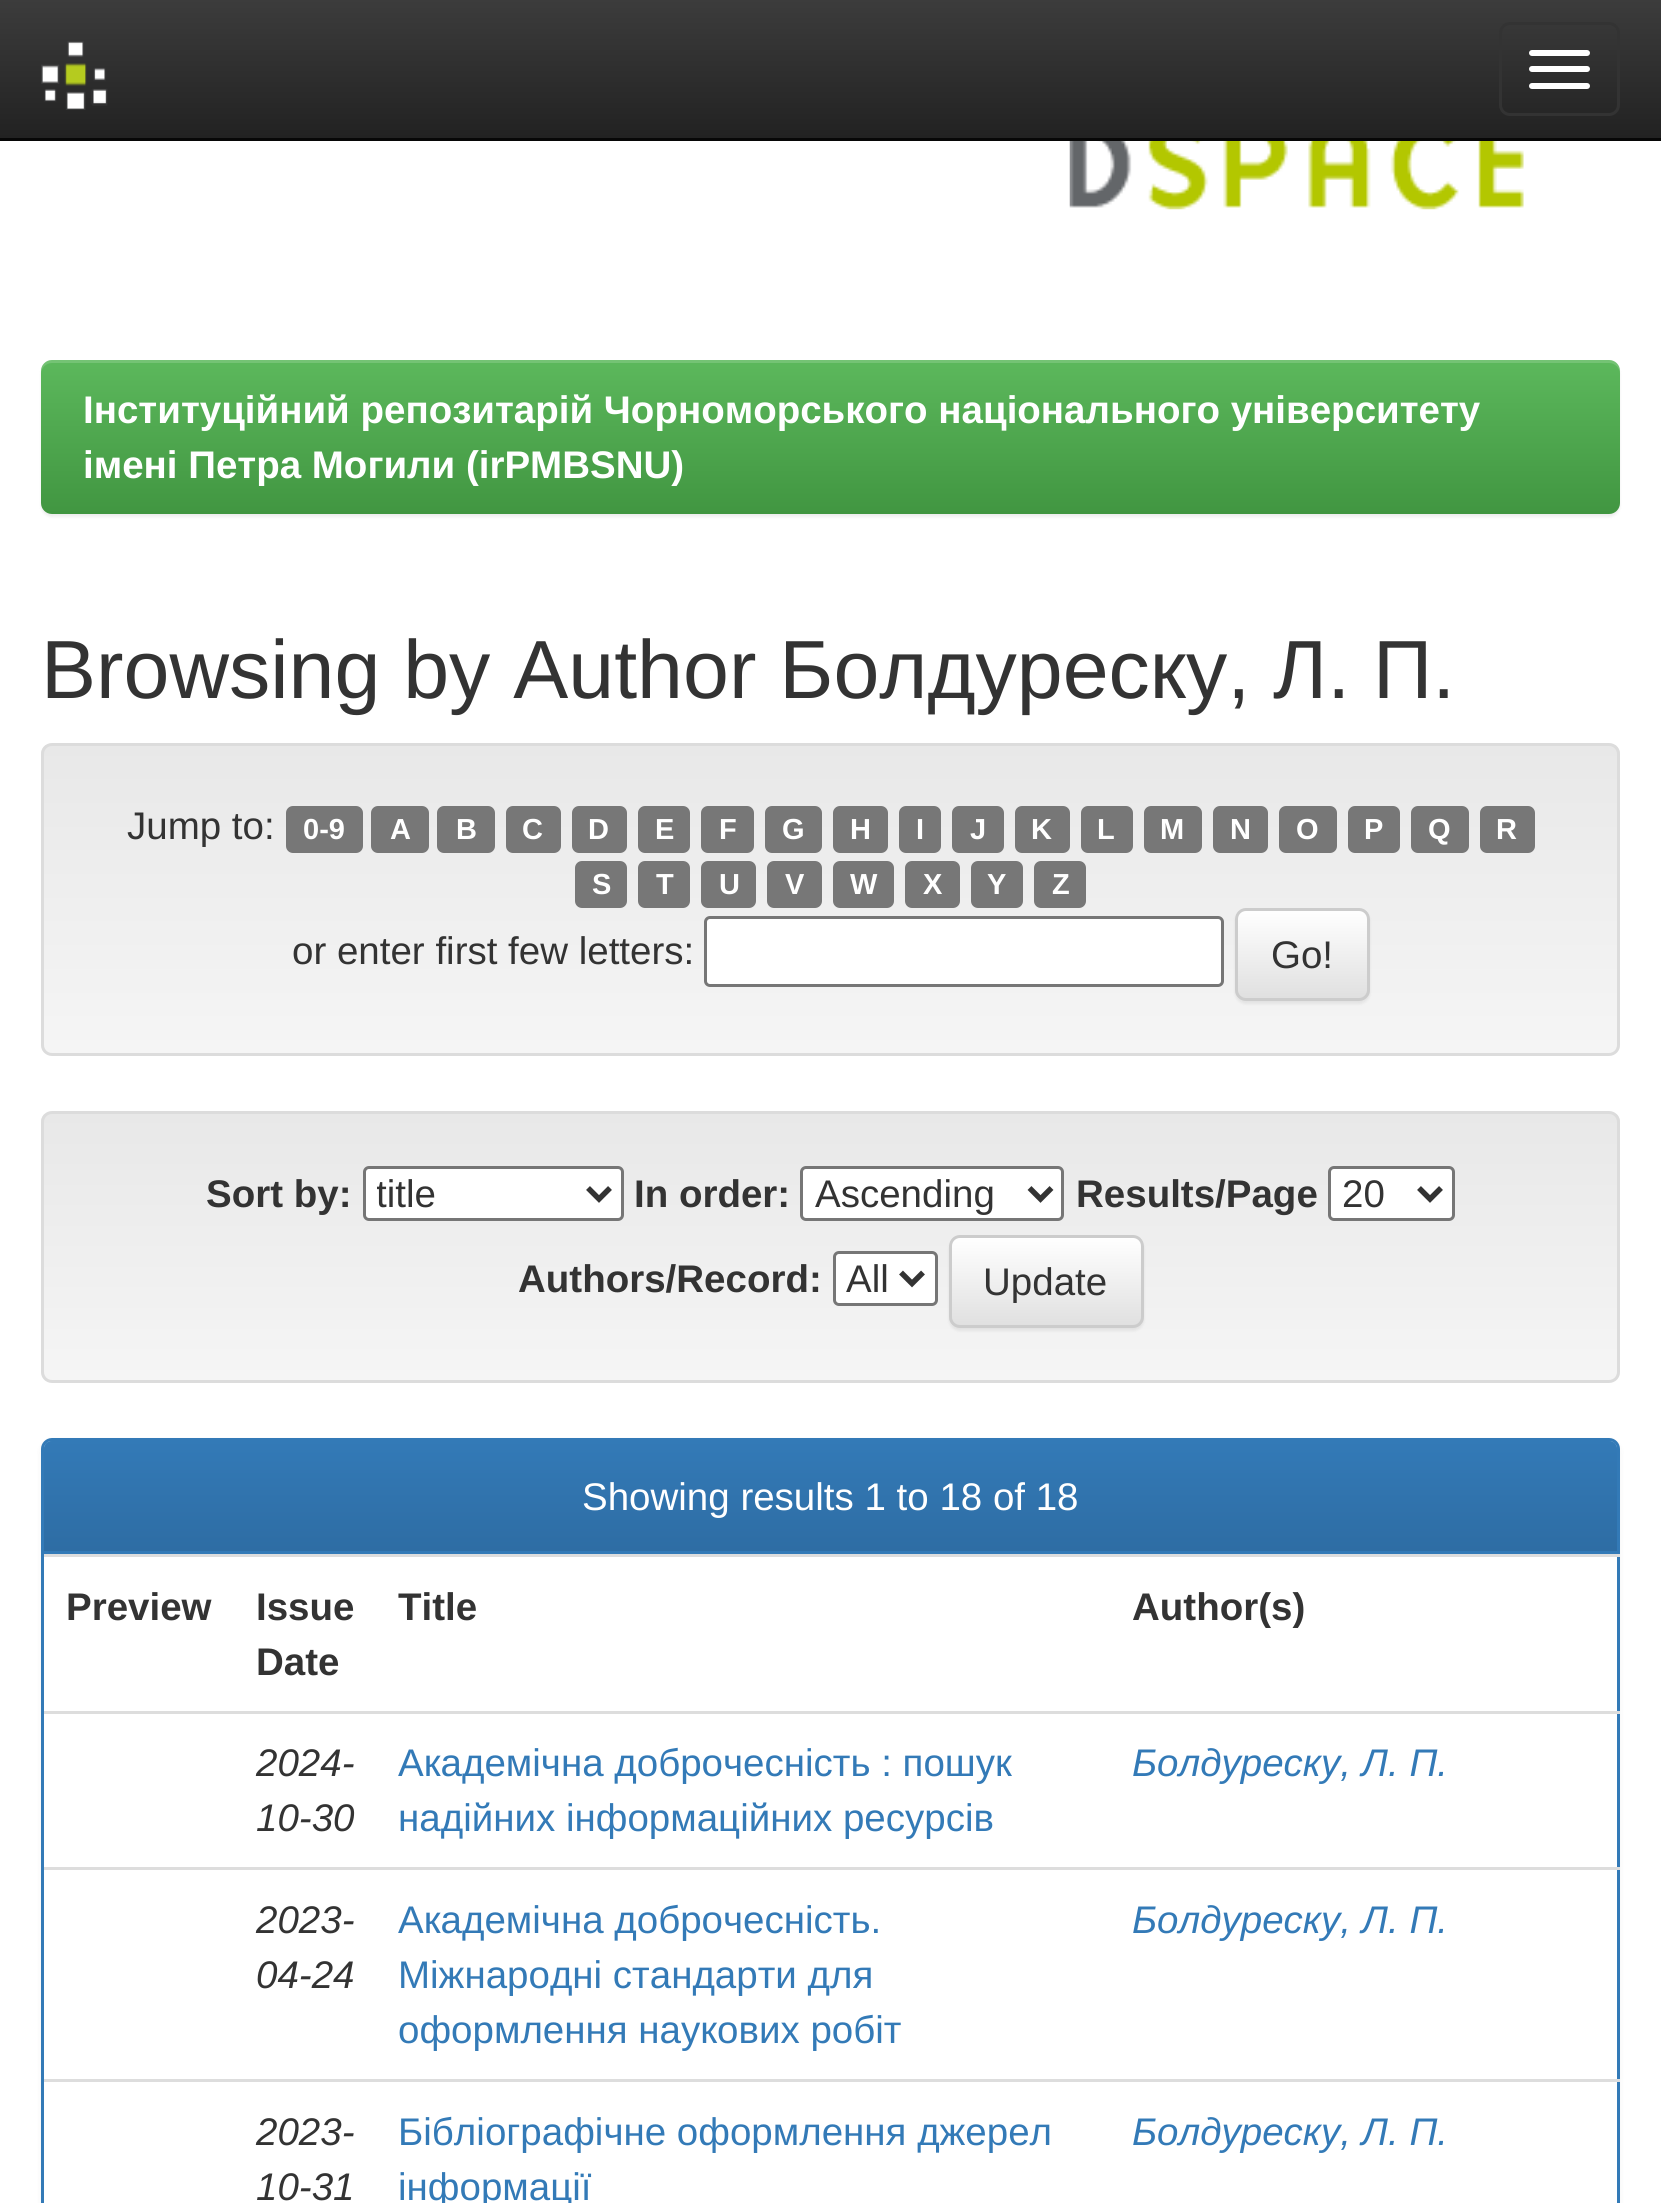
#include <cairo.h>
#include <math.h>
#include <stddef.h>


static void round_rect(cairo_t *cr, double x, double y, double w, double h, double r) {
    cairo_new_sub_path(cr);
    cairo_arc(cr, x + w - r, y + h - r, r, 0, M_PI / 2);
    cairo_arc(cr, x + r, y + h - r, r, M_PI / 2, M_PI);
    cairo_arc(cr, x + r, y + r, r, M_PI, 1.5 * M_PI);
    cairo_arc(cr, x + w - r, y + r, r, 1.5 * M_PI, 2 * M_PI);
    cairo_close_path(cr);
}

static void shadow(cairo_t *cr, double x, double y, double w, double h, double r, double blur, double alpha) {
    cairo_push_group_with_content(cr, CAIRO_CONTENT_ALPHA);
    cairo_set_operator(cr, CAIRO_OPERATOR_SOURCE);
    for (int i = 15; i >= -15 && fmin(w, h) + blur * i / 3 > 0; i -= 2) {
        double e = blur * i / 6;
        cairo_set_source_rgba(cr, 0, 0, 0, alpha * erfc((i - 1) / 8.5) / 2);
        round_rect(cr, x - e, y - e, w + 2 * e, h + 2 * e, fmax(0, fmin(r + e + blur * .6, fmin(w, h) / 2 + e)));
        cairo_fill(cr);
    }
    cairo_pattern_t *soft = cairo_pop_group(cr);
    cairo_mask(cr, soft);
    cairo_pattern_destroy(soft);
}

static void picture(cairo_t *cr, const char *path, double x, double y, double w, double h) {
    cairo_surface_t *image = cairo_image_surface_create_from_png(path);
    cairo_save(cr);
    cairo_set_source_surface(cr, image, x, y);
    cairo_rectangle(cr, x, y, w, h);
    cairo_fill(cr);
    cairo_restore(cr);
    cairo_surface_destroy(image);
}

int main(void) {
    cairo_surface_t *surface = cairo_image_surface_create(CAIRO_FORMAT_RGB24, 1661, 2203);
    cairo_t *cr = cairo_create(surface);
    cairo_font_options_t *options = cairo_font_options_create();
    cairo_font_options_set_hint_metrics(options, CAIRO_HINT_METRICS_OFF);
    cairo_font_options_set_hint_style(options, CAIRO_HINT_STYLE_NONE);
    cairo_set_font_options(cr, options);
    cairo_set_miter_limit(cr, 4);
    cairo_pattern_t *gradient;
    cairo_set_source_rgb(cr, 1, 1, 1);
    cairo_paint(cr);
    gradient = cairo_pattern_create_linear(831, 0, 831, 138);
    cairo_pattern_add_color_stop_rgba(gradient, 0, 0.235, 0.235, 0.235, 1);
    cairo_pattern_add_color_stop_rgba(gradient, 1, 0.133, 0.133, 0.133, 1);
    cairo_set_source(cr, gradient);
    cairo_pattern_destroy(gradient);
    cairo_rectangle(cr, 0, 0, 1661, 138);
    cairo_fill(cr);
    cairo_set_source_rgb(cr, 0.031, 0.031, 0.031);
    cairo_rectangle(cr, 0, 138, 1661, 3);
    cairo_fill(cr);
    picture(cr, "img1.png", 41, 41, 67, 69);
    round_rect(cr, 1500.5, 23.5, 118, 91, 9.5);
    cairo_set_source_rgb(cr, 0.2, 0.2, 0.2);
    cairo_set_line_width(cr, 3);
    cairo_stroke(cr);
    cairo_set_source_rgb(cr, 1, 1, 1);
    round_rect(cr, 1529, 50, 61, 6, 3);
    cairo_fill(cr);
    round_rect(cr, 1529, 66, 61, 6, 3);
    cairo_fill(cr);
    round_rect(cr, 1529, 83, 61, 6, 3);
    cairo_fill(cr);
    picture(cr, "img2.png", 1069, 141, 455, 69);
    cairo_set_source_rgb(cr, 0, 0, 0);
    shadow(cr, 41, 363, 1579, 154, 11, 1.5, 0.07);
    gradient = cairo_pattern_create_linear(831, 360, 831, 514);
    cairo_pattern_add_color_stop_rgba(gradient, 0, 0.361, 0.722, 0.361, 1);
    cairo_pattern_add_color_stop_rgba(gradient, 1, 0.255, 0.588, 0.255, 1);
    cairo_set_source(cr, gradient);
    cairo_pattern_destroy(gradient);
    round_rect(cr, 41, 360, 1579, 154, 11);
    cairo_fill(cr);
    cairo_set_source_rgba(cr, 1, 1, 1, 0.15);
    cairo_new_path(cr);
    cairo_move_to(cr, 52, 363);
    cairo_line_to(cr, 1609, 363);
    cairo_curve_to(cr, 1615, 363, 1620, 368, 1620, 374);
    cairo_line_to(cr, 1620, 371);
    cairo_curve_to(cr, 1620, 365, 1615, 360, 1609, 360);
    cairo_line_to(cr, 52, 360);
    cairo_curve_to(cr, 46, 360, 41, 365, 41, 371);
    cairo_line_to(cr, 41, 374);
    cairo_curve_to(cr, 41, 368, 46, 363, 52, 363);
    cairo_close_path(cr);
    cairo_fill(cr);
    cairo_select_font_face(cr, "Liberation Sans", CAIRO_FONT_SLANT_NORMAL, CAIRO_FONT_WEIGHT_BOLD);
    cairo_set_font_size(cr, 38.5);
    cairo_set_source_rgb(cr, 1, 1, 1);
    cairo_move_to(cr, 83, 423);
    cairo_show_text(cr, "Інституційний репозитарій Чорноморського національного університету");
    cairo_move_to(cr, 83, 478);
    cairo_show_text(cr, "імені Петра Могили (irPMBSNU)");
    cairo_select_font_face(cr, "Liberation Sans", CAIRO_FONT_SLANT_NORMAL, CAIRO_FONT_WEIGHT_NORMAL);
    cairo_set_font_size(cr, 82.5);
    cairo_set_source_rgb(cr, 0.2, 0.2, 0.2);
    cairo_move_to(cr, 41, 698);
    cairo_show_text(cr, "Browsing by Author Болдуреску, Л. П.");
    cairo_save(cr);
    round_rect(cr, 41, 743, 1579, 313, 11);
    cairo_clip(cr);
    gradient = cairo_pattern_create_linear(831, 745, 831, 1053);
    cairo_pattern_add_color_stop_rgba(gradient, 0, 0.91, 0.91, 0.91, 1);
    cairo_pattern_add_color_stop_rgba(gradient, 1, 0.961, 0.961, 0.961, 1);
    cairo_set_source(cr, gradient);
    cairo_pattern_destroy(gradient);
    cairo_rectangle(cr, 41, 745, 1579, 308);
    cairo_fill(cr);
    cairo_restore(cr);
    round_rect(cr, 42.5, 744.5, 1576, 310, 9.5);
    cairo_set_source_rgb(cr, 0.863, 0.863, 0.863);
    cairo_stroke(cr);
    cairo_set_font_size(cr, 38.5);
    cairo_set_source_rgb(cr, 0.2, 0.2, 0.2);
    cairo_move_to(cr, 127, 839);
    cairo_show_text(cr, "Jump to:");
    cairo_set_source_rgb(cr, 0.467, 0.467, 0.467);
    round_rect(cr, 286, 806, 77, 47, 7);
    cairo_fill(cr);
    cairo_select_font_face(cr, "Liberation Sans", CAIRO_FONT_SLANT_NORMAL, CAIRO_FONT_WEIGHT_BOLD);
    cairo_set_font_size(cr, 29);
    cairo_set_source_rgb(cr, 1, 1, 1);
    cairo_move_to(cr, 303, 839);
    cairo_show_text(cr, "0-9");
    cairo_set_source_rgb(cr, 0.467, 0.467, 0.467);
    round_rect(cr, 371, 806, 58, 47, 7);
    cairo_fill(cr);
    cairo_set_source_rgb(cr, 1, 1, 1);
    cairo_move_to(cr, 390, 839);
    cairo_show_text(cr, "A");
    cairo_set_source_rgb(cr, 0.467, 0.467, 0.467);
    round_rect(cr, 437, 806, 58, 47, 7);
    cairo_fill(cr);
    cairo_set_source_rgb(cr, 1, 1, 1);
    cairo_move_to(cr, 456, 839);
    cairo_show_text(cr, "B");
    cairo_set_source_rgb(cr, 0.467, 0.467, 0.467);
    round_rect(cr, 506, 806, 55, 47, 7);
    cairo_fill(cr);
    cairo_set_source_rgb(cr, 1, 1, 1);
    cairo_move_to(cr, 522, 839);
    cairo_show_text(cr, "C");
    cairo_set_source_rgb(cr, 0.467, 0.467, 0.467);
    round_rect(cr, 572, 806, 55, 47, 7);
    cairo_fill(cr);
    cairo_set_source_rgb(cr, 1, 1, 1);
    cairo_move_to(cr, 588, 839);
    cairo_show_text(cr, "D");
    cairo_set_source_rgb(cr, 0.467, 0.467, 0.467);
    round_rect(cr, 638, 806, 52, 47, 7);
    cairo_fill(cr);
    cairo_set_source_rgb(cr, 1, 1, 1);
    cairo_move_to(cr, 655, 839);
    cairo_show_text(cr, "E");
    cairo_set_source_rgb(cr, 0.467, 0.467, 0.467);
    round_rect(cr, 701, 806, 53, 47, 7);
    cairo_fill(cr);
    cairo_set_source_rgb(cr, 1, 1, 1);
    cairo_move_to(cr, 719, 839);
    cairo_show_text(cr, "F");
    cairo_set_source_rgb(cr, 0.467, 0.467, 0.467);
    round_rect(cr, 765, 806, 57, 47, 7);
    cairo_fill(cr);
    cairo_set_source_rgb(cr, 1, 1, 1);
    cairo_move_to(cr, 782, 839);
    cairo_show_text(cr, "G");
    cairo_set_source_rgb(cr, 0.467, 0.467, 0.467);
    round_rect(cr, 833, 806, 55, 47, 7);
    cairo_fill(cr);
    cairo_set_source_rgb(cr, 1, 1, 1);
    cairo_move_to(cr, 850, 839);
    cairo_show_text(cr, "H");
    cairo_set_source_rgb(cr, 0.467, 0.467, 0.467);
    round_rect(cr, 899, 806, 42, 47, 7);
    cairo_fill(cr);
    cairo_set_source_rgb(cr, 1, 1, 1);
    cairo_move_to(cr, 916, 839);
    cairo_show_text(cr, "I");
    cairo_set_source_rgb(cr, 0.467, 0.467, 0.467);
    round_rect(cr, 952, 806, 52, 47, 7);
    cairo_fill(cr);
    cairo_set_source_rgb(cr, 1, 1, 1);
    cairo_move_to(cr, 970, 839);
    cairo_show_text(cr, "J");
    cairo_set_source_rgb(cr, 0.467, 0.467, 0.467);
    round_rect(cr, 1015, 806, 55, 47, 7);
    cairo_fill(cr);
    cairo_set_source_rgb(cr, 1, 1, 1);
    cairo_move_to(cr, 1031, 839);
    cairo_show_text(cr, "K");
    cairo_set_source_rgb(cr, 0.467, 0.467, 0.467);
    round_rect(cr, 1081, 806, 52, 47, 7);
    cairo_fill(cr);
    cairo_set_source_rgb(cr, 1, 1, 1);
    cairo_move_to(cr, 1097, 839);
    cairo_show_text(cr, "L");
    cairo_set_source_rgb(cr, 0.467, 0.467, 0.467);
    round_rect(cr, 1144, 806, 58, 47, 7);
    cairo_fill(cr);
    cairo_set_source_rgb(cr, 1, 1, 1);
    cairo_move_to(cr, 1160, 839);
    cairo_show_text(cr, "M");
    cairo_set_source_rgb(cr, 0.467, 0.467, 0.467);
    round_rect(cr, 1213, 806, 55, 47, 7);
    cairo_fill(cr);
    cairo_set_source_rgb(cr, 1, 1, 1);
    cairo_move_to(cr, 1230, 839);
    cairo_show_text(cr, "N");
    cairo_set_source_rgb(cr, 0.467, 0.467, 0.467);
    round_rect(cr, 1279, 806, 58, 47, 7);
    cairo_fill(cr);
    cairo_set_source_rgb(cr, 1, 1, 1);
    cairo_move_to(cr, 1296, 839);
    cairo_show_text(cr, "O");
    cairo_set_source_rgb(cr, 0.467, 0.467, 0.467);
    round_rect(cr, 1348, 806, 52, 47, 7);
    cairo_fill(cr);
    cairo_set_source_rgb(cr, 1, 1, 1);
    cairo_move_to(cr, 1364, 839);
    cairo_show_text(cr, "P");
    cairo_set_source_rgb(cr, 0.467, 0.467, 0.467);
    round_rect(cr, 1411, 806, 58, 47, 7);
    cairo_fill(cr);
    cairo_set_source_rgb(cr, 1, 1, 1);
    cairo_move_to(cr, 1428, 839);
    cairo_show_text(cr, "Q");
    cairo_set_source_rgb(cr, 0.467, 0.467, 0.467);
    round_rect(cr, 1480, 806, 55, 47, 7);
    cairo_fill(cr);
    cairo_set_source_rgb(cr, 1, 1, 1);
    cairo_move_to(cr, 1496, 839);
    cairo_show_text(cr, "R");
    cairo_set_source_rgb(cr, 0.467, 0.467, 0.467);
    round_rect(cr, 575, 861, 52, 47, 7);
    cairo_fill(cr);
    cairo_set_source_rgb(cr, 1, 1, 1);
    cairo_move_to(cr, 592, 894);
    cairo_show_text(cr, "S");
    cairo_set_source_rgb(cr, 0.467, 0.467, 0.467);
    round_rect(cr, 638, 861, 52, 47, 7);
    cairo_fill(cr);
    cairo_set_source_rgb(cr, 1, 1, 1);
    cairo_move_to(cr, 656, 894);
    cairo_show_text(cr, "T");
    cairo_set_source_rgb(cr, 0.467, 0.467, 0.467);
    round_rect(cr, 701, 861, 55, 47, 7);
    cairo_fill(cr);
    cairo_set_source_rgb(cr, 1, 1, 1);
    cairo_move_to(cr, 719, 894);
    cairo_show_text(cr, "U");
    cairo_set_source_rgb(cr, 0.467, 0.467, 0.467);
    round_rect(cr, 767, 861, 55, 47, 7);
    cairo_fill(cr);
    cairo_set_source_rgb(cr, 1, 1, 1);
    cairo_move_to(cr, 785, 894);
    cairo_show_text(cr, "V");
    cairo_set_source_rgb(cr, 0.467, 0.467, 0.467);
    round_rect(cr, 833, 861, 61, 47, 7);
    cairo_fill(cr);
    cairo_set_source_rgb(cr, 1, 1, 1);
    cairo_move_to(cr, 850, 894);
    cairo_show_text(cr, "W");
    cairo_set_source_rgb(cr, 0.467, 0.467, 0.467);
    round_rect(cr, 905, 861, 55, 47, 7);
    cairo_fill(cr);
    cairo_set_source_rgb(cr, 1, 1, 1);
    cairo_move_to(cr, 923, 894);
    cairo_show_text(cr, "X");
    cairo_set_source_rgb(cr, 0.467, 0.467, 0.467);
    round_rect(cr, 971, 861, 52, 47, 7);
    cairo_fill(cr);
    cairo_set_source_rgb(cr, 1, 1, 1);
    cairo_move_to(cr, 987, 894);
    cairo_show_text(cr, "Y");
    cairo_set_source_rgb(cr, 0.467, 0.467, 0.467);
    round_rect(cr, 1034, 861, 52, 47, 7);
    cairo_fill(cr);
    cairo_set_source_rgb(cr, 1, 1, 1);
    cairo_move_to(cr, 1052, 894);
    cairo_show_text(cr, "Z");
    cairo_select_font_face(cr, "Liberation Sans", CAIRO_FONT_SLANT_NORMAL, CAIRO_FONT_WEIGHT_NORMAL);
    cairo_set_font_size(cr, 38.5);
    cairo_set_source_rgb(cr, 0.2, 0.2, 0.2);
    cairo_move_to(cr, 292, 964);
    cairo_show_text(cr, "or enter first few letters:");
    cairo_set_source_rgb(cr, 1, 1, 1);
    round_rect(cr, 705.5, 917.5, 517, 68, 4.5);
    cairo_fill_preserve(cr);
    cairo_set_source_rgb(cr, 0.463, 0.463, 0.463);
    cairo_stroke(cr);
    cairo_set_source_rgb(cr, 0, 0, 0);
    shadow(cr, 1235, 910, 135, 94, 11, 1.5, 0.07);
    cairo_save(cr);
    round_rect(cr, 1235, 908, 135, 93, 11);
    cairo_clip(cr);
    gradient = cairo_pattern_create_linear(1302, 910, 1302, 998);
    cairo_pattern_add_color_stop_rgba(gradient, 0, 1, 1, 1, 1);
    cairo_pattern_add_color_stop_rgba(gradient, 1, 0.878, 0.878, 0.878, 1);
    cairo_set_source(cr, gradient);
    cairo_pattern_destroy(gradient);
    cairo_rectangle(cr, 1235, 910, 135, 88);
    cairo_fill(cr);
    cairo_restore(cr);
    round_rect(cr, 1236.5, 909.5, 132, 90, 9.5);
    cairo_set_source_rgb(cr, 0.8, 0.8, 0.8);
    cairo_stroke(cr);
    cairo_set_source_rgb(cr, 0.2, 0.2, 0.2);
    cairo_move_to(cr, 1271, 968);
    cairo_show_text(cr, "Go!");
    cairo_save(cr);
    round_rect(cr, 41, 1111, 1579, 272, 11);
    cairo_clip(cr);
    gradient = cairo_pattern_create_linear(831, 1114, 831, 1381);
    cairo_pattern_add_color_stop_rgba(gradient, 0, 0.91, 0.91, 0.91, 1);
    cairo_pattern_add_color_stop_rgba(gradient, 1, 0.961, 0.961, 0.961, 1);
    cairo_set_source(cr, gradient);
    cairo_pattern_destroy(gradient);
    cairo_rectangle(cr, 41, 1114, 1579, 267);
    cairo_fill(cr);
    cairo_restore(cr);
    round_rect(cr, 42.5, 1112.5, 1576, 269, 9.5);
    cairo_set_source_rgb(cr, 0.863, 0.863, 0.863);
    cairo_stroke(cr);
    cairo_select_font_face(cr, "Liberation Sans", CAIRO_FONT_SLANT_NORMAL, CAIRO_FONT_WEIGHT_BOLD);
    cairo_set_source_rgb(cr, 0.2, 0.2, 0.2);
    cairo_move_to(cr, 206, 1207);
    cairo_show_text(cr, "Sort by:");
    cairo_set_source_rgb(cr, 1, 1, 1);
    round_rect(cr, 364.5, 1167.5, 258, 52, 4.5);
    cairo_fill_preserve(cr);
    cairo_set_source_rgb(cr, 0.463, 0.463, 0.463);
    cairo_stroke(cr);
    cairo_new_path(cr);
    cairo_move_to(cr, 588, 1188);
    cairo_line_to(cr, 599, 1199);
    cairo_line_to(cr, 610, 1188);
    cairo_set_source_rgb(cr, 0.2, 0.2, 0.2);
    cairo_set_line_width(cr, 5.5);
    cairo_stroke(cr);
    cairo_save(cr);
    cairo_rectangle(cr, 377, 1169, 201, 49);
    cairo_clip(cr);
    cairo_select_font_face(cr, "Liberation Sans", CAIRO_FONT_SLANT_NORMAL, CAIRO_FONT_WEIGHT_NORMAL);
    cairo_move_to(cr, 376, 1207);
    cairo_show_text(cr, "title");
    cairo_restore(cr);
    cairo_move_to(cr, 634, 1207);
    cairo_show_text(cr, "In order:");
    cairo_set_source_rgb(cr, 1, 1, 1);
    round_rect(cr, 801.5, 1167.5, 261, 52, 4.5);
    cairo_fill_preserve(cr);
    cairo_set_source_rgb(cr, 0.463, 0.463, 0.463);
    cairo_set_line_width(cr, 3);
    cairo_stroke(cr);
    cairo_new_path(cr);
    cairo_move_to(cr, 1029.5, 1188);
    cairo_line_to(cr, 1040.5, 1199);
    cairo_line_to(cr, 1051.5, 1188);
    cairo_set_source_rgb(cr, 0.2, 0.2, 0.2);
    cairo_set_line_width(cr, 5.5);
    cairo_stroke(cr);
    cairo_select_font_face(cr, "Liberation Sans", CAIRO_FONT_SLANT_NORMAL, CAIRO_FONT_WEIGHT_NORMAL);
    cairo_move_to(cr, 815, 1207);
    cairo_show_text(cr, "Ascending");
    cairo_select_font_face(cr, "Liberation Sans", CAIRO_FONT_SLANT_NORMAL, CAIRO_FONT_WEIGHT_BOLD);
    cairo_move_to(cr, 1076, 1207);
    cairo_show_text(cr, "Results/Page");
    cairo_set_source_rgb(cr, 1, 1, 1);
    round_rect(cr, 1329.5, 1167.5, 124, 52, 4.5);
    cairo_fill_preserve(cr);
    cairo_set_source_rgb(cr, 0.463, 0.463, 0.463);
    cairo_set_line_width(cr, 3);
    cairo_stroke(cr);
    cairo_new_path(cr);
    cairo_move_to(cr, 1419, 1188);
    cairo_line_to(cr, 1430, 1199);
    cairo_line_to(cr, 1441, 1188);
    cairo_set_source_rgb(cr, 0.2, 0.2, 0.2);
    cairo_set_line_width(cr, 5.5);
    cairo_stroke(cr);
    cairo_select_font_face(cr, "Liberation Sans", CAIRO_FONT_SLANT_NORMAL, CAIRO_FONT_WEIGHT_NORMAL);
    cairo_move_to(cr, 1342, 1207);
    cairo_show_text(cr, "20");
    cairo_select_font_face(cr, "Liberation Sans", CAIRO_FONT_SLANT_NORMAL, CAIRO_FONT_WEIGHT_BOLD);
    cairo_move_to(cr, 518, 1292);
    cairo_show_text(cr, "Authors/Record:");
    cairo_set_source_rgb(cr, 1, 1, 1);
    round_rect(cr, 834.5, 1252.5, 102, 52, 4.5);
    cairo_fill_preserve(cr);
    cairo_set_source_rgb(cr, 0.463, 0.463, 0.463);
    cairo_set_line_width(cr, 3);
    cairo_stroke(cr);
    cairo_new_path(cr);
    cairo_move_to(cr, 901, 1272.5);
    cairo_line_to(cr, 912, 1283.5);
    cairo_line_to(cr, 923, 1272.5);
    cairo_set_source_rgb(cr, 0.2, 0.2, 0.2);
    cairo_set_line_width(cr, 5.5);
    cairo_stroke(cr);
    cairo_select_font_face(cr, "Liberation Sans", CAIRO_FONT_SLANT_NORMAL, CAIRO_FONT_WEIGHT_NORMAL);
    cairo_move_to(cr, 846, 1292);
    cairo_show_text(cr, "All");
    cairo_set_source_rgb(cr, 0, 0, 0);
    shadow(cr, 949, 1238, 195, 93, 11, 1.5, 0.07);
    cairo_save(cr);
    round_rect(cr, 949, 1235, 195, 93, 11);
    cairo_clip(cr);
    gradient = cairo_pattern_create_linear(1046, 1238, 1046, 1326);
    cairo_pattern_add_color_stop_rgba(gradient, 0, 1, 1, 1, 1);
    cairo_pattern_add_color_stop_rgba(gradient, 1, 0.878, 0.878, 0.878, 1);
    cairo_set_source(cr, gradient);
    cairo_pattern_destroy(gradient);
    cairo_rectangle(cr, 949, 1238, 195, 88);
    cairo_fill(cr);
    cairo_restore(cr);
    round_rect(cr, 950.5, 1236.5, 192, 90, 9.5);
    cairo_set_source_rgb(cr, 0.8, 0.8, 0.8);
    cairo_set_line_width(cr, 3);
    cairo_stroke(cr);
    cairo_set_source_rgb(cr, 0.2, 0.2, 0.2);
    cairo_move_to(cr, 983, 1295);
    cairo_show_text(cr, "Update");
    cairo_set_source_rgb(cr, 0, 0, 0);
    shadow(cr, 41, 1441, 1579, 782, 11, 3, 0.05);
    cairo_set_source_rgb(cr, 1, 1, 1);
    round_rect(cr, 42.5, 1439.5, 1576, 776, 9.5);
    cairo_fill_preserve(cr);
    cairo_set_source_rgb(cr, 0.2, 0.478, 0.718);
    cairo_stroke(cr);
    cairo_new_path(cr);
    cairo_move_to(cr, 52, 1441);
    cairo_line_to(cr, 1609, 1441);
    cairo_curve_to(cr, 1613.5, 1441, 1617, 1444.5, 1617, 1449);
    cairo_line_to(cr, 1617, 1554);
    cairo_line_to(cr, 44, 1554);
    cairo_line_to(cr, 44, 1449);
    cairo_curve_to(cr, 44, 1444.5, 47.5, 1441, 52, 1441);
    cairo_close_path(cr);
    cairo_fill(cr);
    gradient = cairo_pattern_create_linear(831, 1441, 831, 1551);
    cairo_pattern_add_color_stop_rgba(gradient, 0, 0.2, 0.478, 0.718, 1);
    cairo_pattern_add_color_stop_rgba(gradient, 1, 0.18, 0.427, 0.643, 1);
    cairo_set_source(cr, gradient);
    cairo_pattern_destroy(gradient);
    cairo_new_path(cr);
    cairo_move_to(cr, 52, 1441);
    cairo_line_to(cr, 1609, 1441);
    cairo_curve_to(cr, 1613.5, 1441, 1617, 1444.5, 1617, 1449);
    cairo_line_to(cr, 1617, 1551);
    cairo_line_to(cr, 44, 1551);
    cairo_line_to(cr, 44, 1449);
    cairo_curve_to(cr, 44, 1444.5, 47.5, 1441, 52, 1441);
    cairo_close_path(cr);
    cairo_fill(cr);
    cairo_set_source_rgb(cr, 1, 1, 1);
    cairo_move_to(cr, 582, 1510);
    cairo_show_text(cr, "Showing results 1 to 18 of 18");
    cairo_select_font_face(cr, "Liberation Sans", CAIRO_FONT_SLANT_NORMAL, CAIRO_FONT_WEIGHT_BOLD);
    cairo_set_source_rgb(cr, 0.2, 0.2, 0.2);
    cairo_move_to(cr, 66, 1620);
    cairo_show_text(cr, "Preview");
    cairo_move_to(cr, 256, 1620);
    cairo_show_text(cr, "Issue");
    cairo_move_to(cr, 256, 1675);
    cairo_show_text(cr, "Date");
    cairo_move_to(cr, 398, 1620);
    cairo_show_text(cr, "Title");
    cairo_set_source_rgb(cr, 0.867, 0.867, 0.867);
    cairo_rectangle(cr, 44, 1554, 1576, 3);
    cairo_fill(cr);
    cairo_set_source_rgb(cr, 0.2, 0.2, 0.2);
    cairo_move_to(cr, 1132, 1620);
    cairo_show_text(cr, "Author(s)");
    cairo_select_font_face(cr, "Liberation Sans", CAIRO_FONT_SLANT_ITALIC, CAIRO_FONT_WEIGHT_NORMAL);
    cairo_move_to(cr, 256, 1776);
    cairo_show_text(cr, "2024-");
    cairo_move_to(cr, 256, 1831);
    cairo_show_text(cr, "10-30");
    cairo_select_font_face(cr, "Liberation Sans", CAIRO_FONT_SLANT_NORMAL, CAIRO_FONT_WEIGHT_NORMAL);
    cairo_set_source_rgb(cr, 0.2, 0.478, 0.718);
    cairo_move_to(cr, 398, 1776);
    cairo_show_text(cr, "Академічна доброчесність : пошук");
    cairo_move_to(cr, 398, 1831);
    cairo_show_text(cr, "надійних інформаційних ресурсів");
    cairo_set_source_rgb(cr, 0.867, 0.867, 0.867);
    cairo_rectangle(cr, 44, 1711, 1576, 3);
    cairo_fill(cr);
    cairo_select_font_face(cr, "Liberation Sans", CAIRO_FONT_SLANT_ITALIC, CAIRO_FONT_WEIGHT_NORMAL);
    cairo_set_source_rgb(cr, 0.2, 0.478, 0.718);
    cairo_move_to(cr, 1132, 1776);
    cairo_show_text(cr, "Болдуреску, Л. П.");
    cairo_set_source_rgb(cr, 0.2, 0.2, 0.2);
    cairo_move_to(cr, 256, 1933);
    cairo_show_text(cr, "2023-");
    cairo_move_to(cr, 256, 1988);
    cairo_show_text(cr, "04-24");
    cairo_select_font_face(cr, "Liberation Sans", CAIRO_FONT_SLANT_NORMAL, CAIRO_FONT_WEIGHT_NORMAL);
    cairo_set_source_rgb(cr, 0.2, 0.478, 0.718);
    cairo_move_to(cr, 398, 1933);
    cairo_show_text(cr, "Академічна доброчесність.");
    cairo_move_to(cr, 398, 1988);
    cairo_show_text(cr, "Міжнародні стандарти для");
    cairo_move_to(cr, 398, 2043);
    cairo_show_text(cr, "оформлення наукових робіт");
    cairo_set_source_rgb(cr, 0.867, 0.867, 0.867);
    cairo_rectangle(cr, 44, 1867, 1576, 3);
    cairo_fill(cr);
    cairo_select_font_face(cr, "Liberation Sans", CAIRO_FONT_SLANT_ITALIC, CAIRO_FONT_WEIGHT_NORMAL);
    cairo_set_source_rgb(cr, 0.2, 0.478, 0.718);
    cairo_move_to(cr, 1132, 1933);
    cairo_show_text(cr, "Болдуреску, Л. П.");
    cairo_set_source_rgb(cr, 0.2, 0.2, 0.2);
    cairo_move_to(cr, 256, 2145);
    cairo_show_text(cr, "2023-");
    cairo_move_to(cr, 256, 2200);
    cairo_show_text(cr, "10-31");
    cairo_select_font_face(cr, "Liberation Sans", CAIRO_FONT_SLANT_NORMAL, CAIRO_FONT_WEIGHT_NORMAL);
    cairo_set_source_rgb(cr, 0.2, 0.478, 0.718);
    cairo_move_to(cr, 398, 2145);
    cairo_show_text(cr, "Бібліографічне оформлення джерел");
    cairo_move_to(cr, 398, 2200);
    cairo_show_text(cr, "інформації");
    cairo_set_source_rgb(cr, 0.867, 0.867, 0.867);
    cairo_rectangle(cr, 44, 2079, 1576, 3);
    cairo_fill(cr);
    cairo_select_font_face(cr, "Liberation Sans", CAIRO_FONT_SLANT_ITALIC, CAIRO_FONT_WEIGHT_NORMAL);
    cairo_set_source_rgb(cr, 0.2, 0.478, 0.718);
    cairo_move_to(cr, 1132, 2145);
    cairo_show_text(cr, "Болдуреску, Л. П.");
    cairo_surface_write_to_png(surface, "page.png");
    cairo_font_options_destroy(options);
    cairo_destroy(cr);
    cairo_surface_destroy(surface);
    return 0;
}
